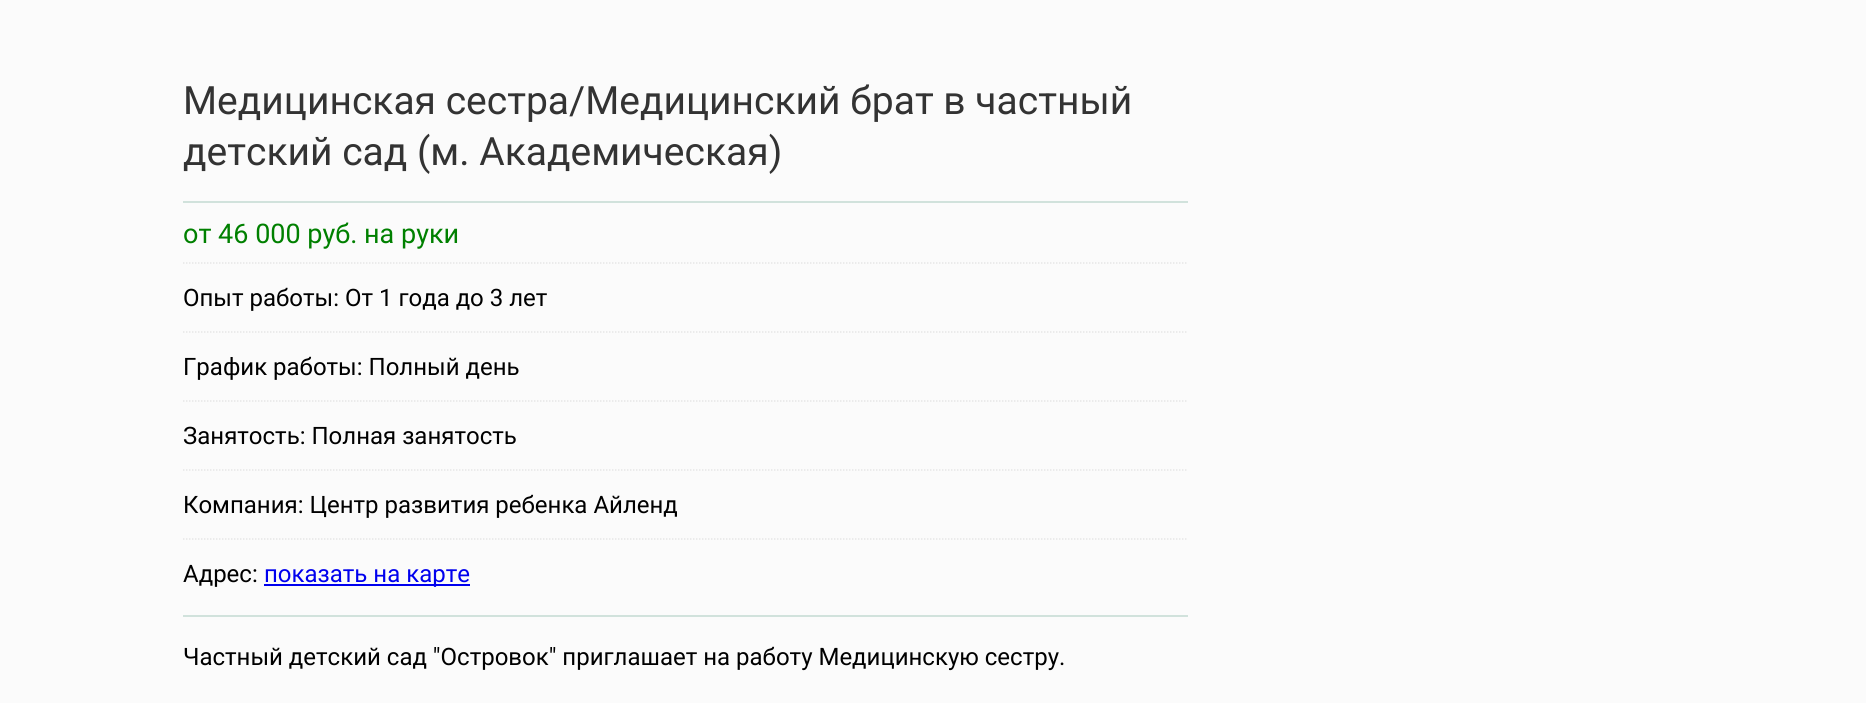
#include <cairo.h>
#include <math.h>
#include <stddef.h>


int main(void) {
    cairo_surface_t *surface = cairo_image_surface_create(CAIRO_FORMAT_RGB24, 1866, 703);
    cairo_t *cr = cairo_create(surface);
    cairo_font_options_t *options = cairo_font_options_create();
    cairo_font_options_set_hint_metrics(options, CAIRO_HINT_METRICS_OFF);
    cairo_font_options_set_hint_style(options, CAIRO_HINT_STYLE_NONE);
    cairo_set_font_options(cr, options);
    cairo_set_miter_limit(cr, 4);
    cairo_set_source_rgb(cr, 0.984, 0.984, 0.984);
    cairo_paint(cr);
    cairo_set_source_rgb(cr, 0.82, 0.886, 0.863);
    cairo_rectangle(cr, 183, 201, 1005, 2);
    cairo_fill(cr);
    cairo_select_font_face(cr, "Roboto", CAIRO_FONT_SLANT_NORMAL, CAIRO_FONT_WEIGHT_NORMAL);
    cairo_set_font_size(cr, 39);
    cairo_set_source_rgb(cr, 0.2, 0.2, 0.2);
    cairo_move_to(cr, 183, 114);
    cairo_show_text(cr, "Медицинская сестра/Медицинский брат в частный");
    cairo_move_to(cr, 183, 165);
    cairo_show_text(cr, "детский сад (м. Академическая)");
    cairo_set_font_size(cr, 27);
    cairo_set_source_rgb(cr, 0, 0.502, 0);
    cairo_move_to(cr, 183, 243);
    cairo_show_text(cr, "от 46 000 руб. на руки");
    cairo_new_path(cr);
    cairo_move_to(cr, 183, 263);
    cairo_line_to(cr, 1188, 263);
    cairo_set_source_rgb(cr, 0.902, 0.902, 0.902);
    cairo_set_line_width(cr, 1.5);
    cairo_set_dash(cr, (double[]){1.5, 1.5}, 2, 0);
    cairo_stroke(cr);
    cairo_set_font_size(cr, 24);
    cairo_set_source_rgb(cr, 0, 0, 0);
    cairo_move_to(cr, 183, 306);
    cairo_show_text(cr, "Опыт работы: От 1 года до 3 лет");
    cairo_new_path(cr);
    cairo_move_to(cr, 183, 332);
    cairo_line_to(cr, 1188, 332);
    cairo_set_source_rgb(cr, 0.902, 0.902, 0.902);
    cairo_stroke(cr);
    cairo_set_source_rgb(cr, 0, 0, 0);
    cairo_move_to(cr, 183, 375);
    cairo_show_text(cr, "График работы: Полный день");
    cairo_new_path(cr);
    cairo_move_to(cr, 183, 401);
    cairo_line_to(cr, 1188, 401);
    cairo_set_source_rgb(cr, 0.902, 0.902, 0.902);
    cairo_stroke(cr);
    cairo_set_source_rgb(cr, 0, 0, 0);
    cairo_move_to(cr, 183, 444);
    cairo_show_text(cr, "Занятость: Полная занятость");
    cairo_new_path(cr);
    cairo_move_to(cr, 183, 470);
    cairo_line_to(cr, 1188, 470);
    cairo_set_source_rgb(cr, 0.902, 0.902, 0.902);
    cairo_stroke(cr);
    cairo_set_source_rgb(cr, 0, 0, 0);
    cairo_move_to(cr, 183, 513);
    cairo_show_text(cr, "Компания: Центр развития ребенка Айленд");
    cairo_new_path(cr);
    cairo_move_to(cr, 183, 539);
    cairo_line_to(cr, 1188, 539);
    cairo_set_source_rgb(cr, 0.902, 0.902, 0.902);
    cairo_stroke(cr);
    cairo_set_source_rgb(cr, 0.82, 0.886, 0.863);
    cairo_rectangle(cr, 183, 615, 1005, 2);
    cairo_fill(cr);
    cairo_set_source_rgb(cr, 0, 0, 0);
    cairo_move_to(cr, 183, 582);
    cairo_show_text(cr, "Адрес:");
    cairo_set_source_rgb(cr, 0, 0, 0.933);
    cairo_rectangle(cr, 264, 584, 206, 2);
    cairo_fill(cr);
    cairo_move_to(cr, 264, 582);
    cairo_show_text(cr, "показать на карте");
    cairo_set_source_rgb(cr, 0, 0, 0);
    cairo_move_to(cr, 183, 665);
    cairo_show_text(cr, "Частный детский сад \"Островок\" приглашает на работу Медицинскую сестру.");
    cairo_surface_write_to_png(surface, "page.png");
    cairo_font_options_destroy(options);
    cairo_destroy(cr);
    cairo_surface_destroy(surface);
    return 0;
}
